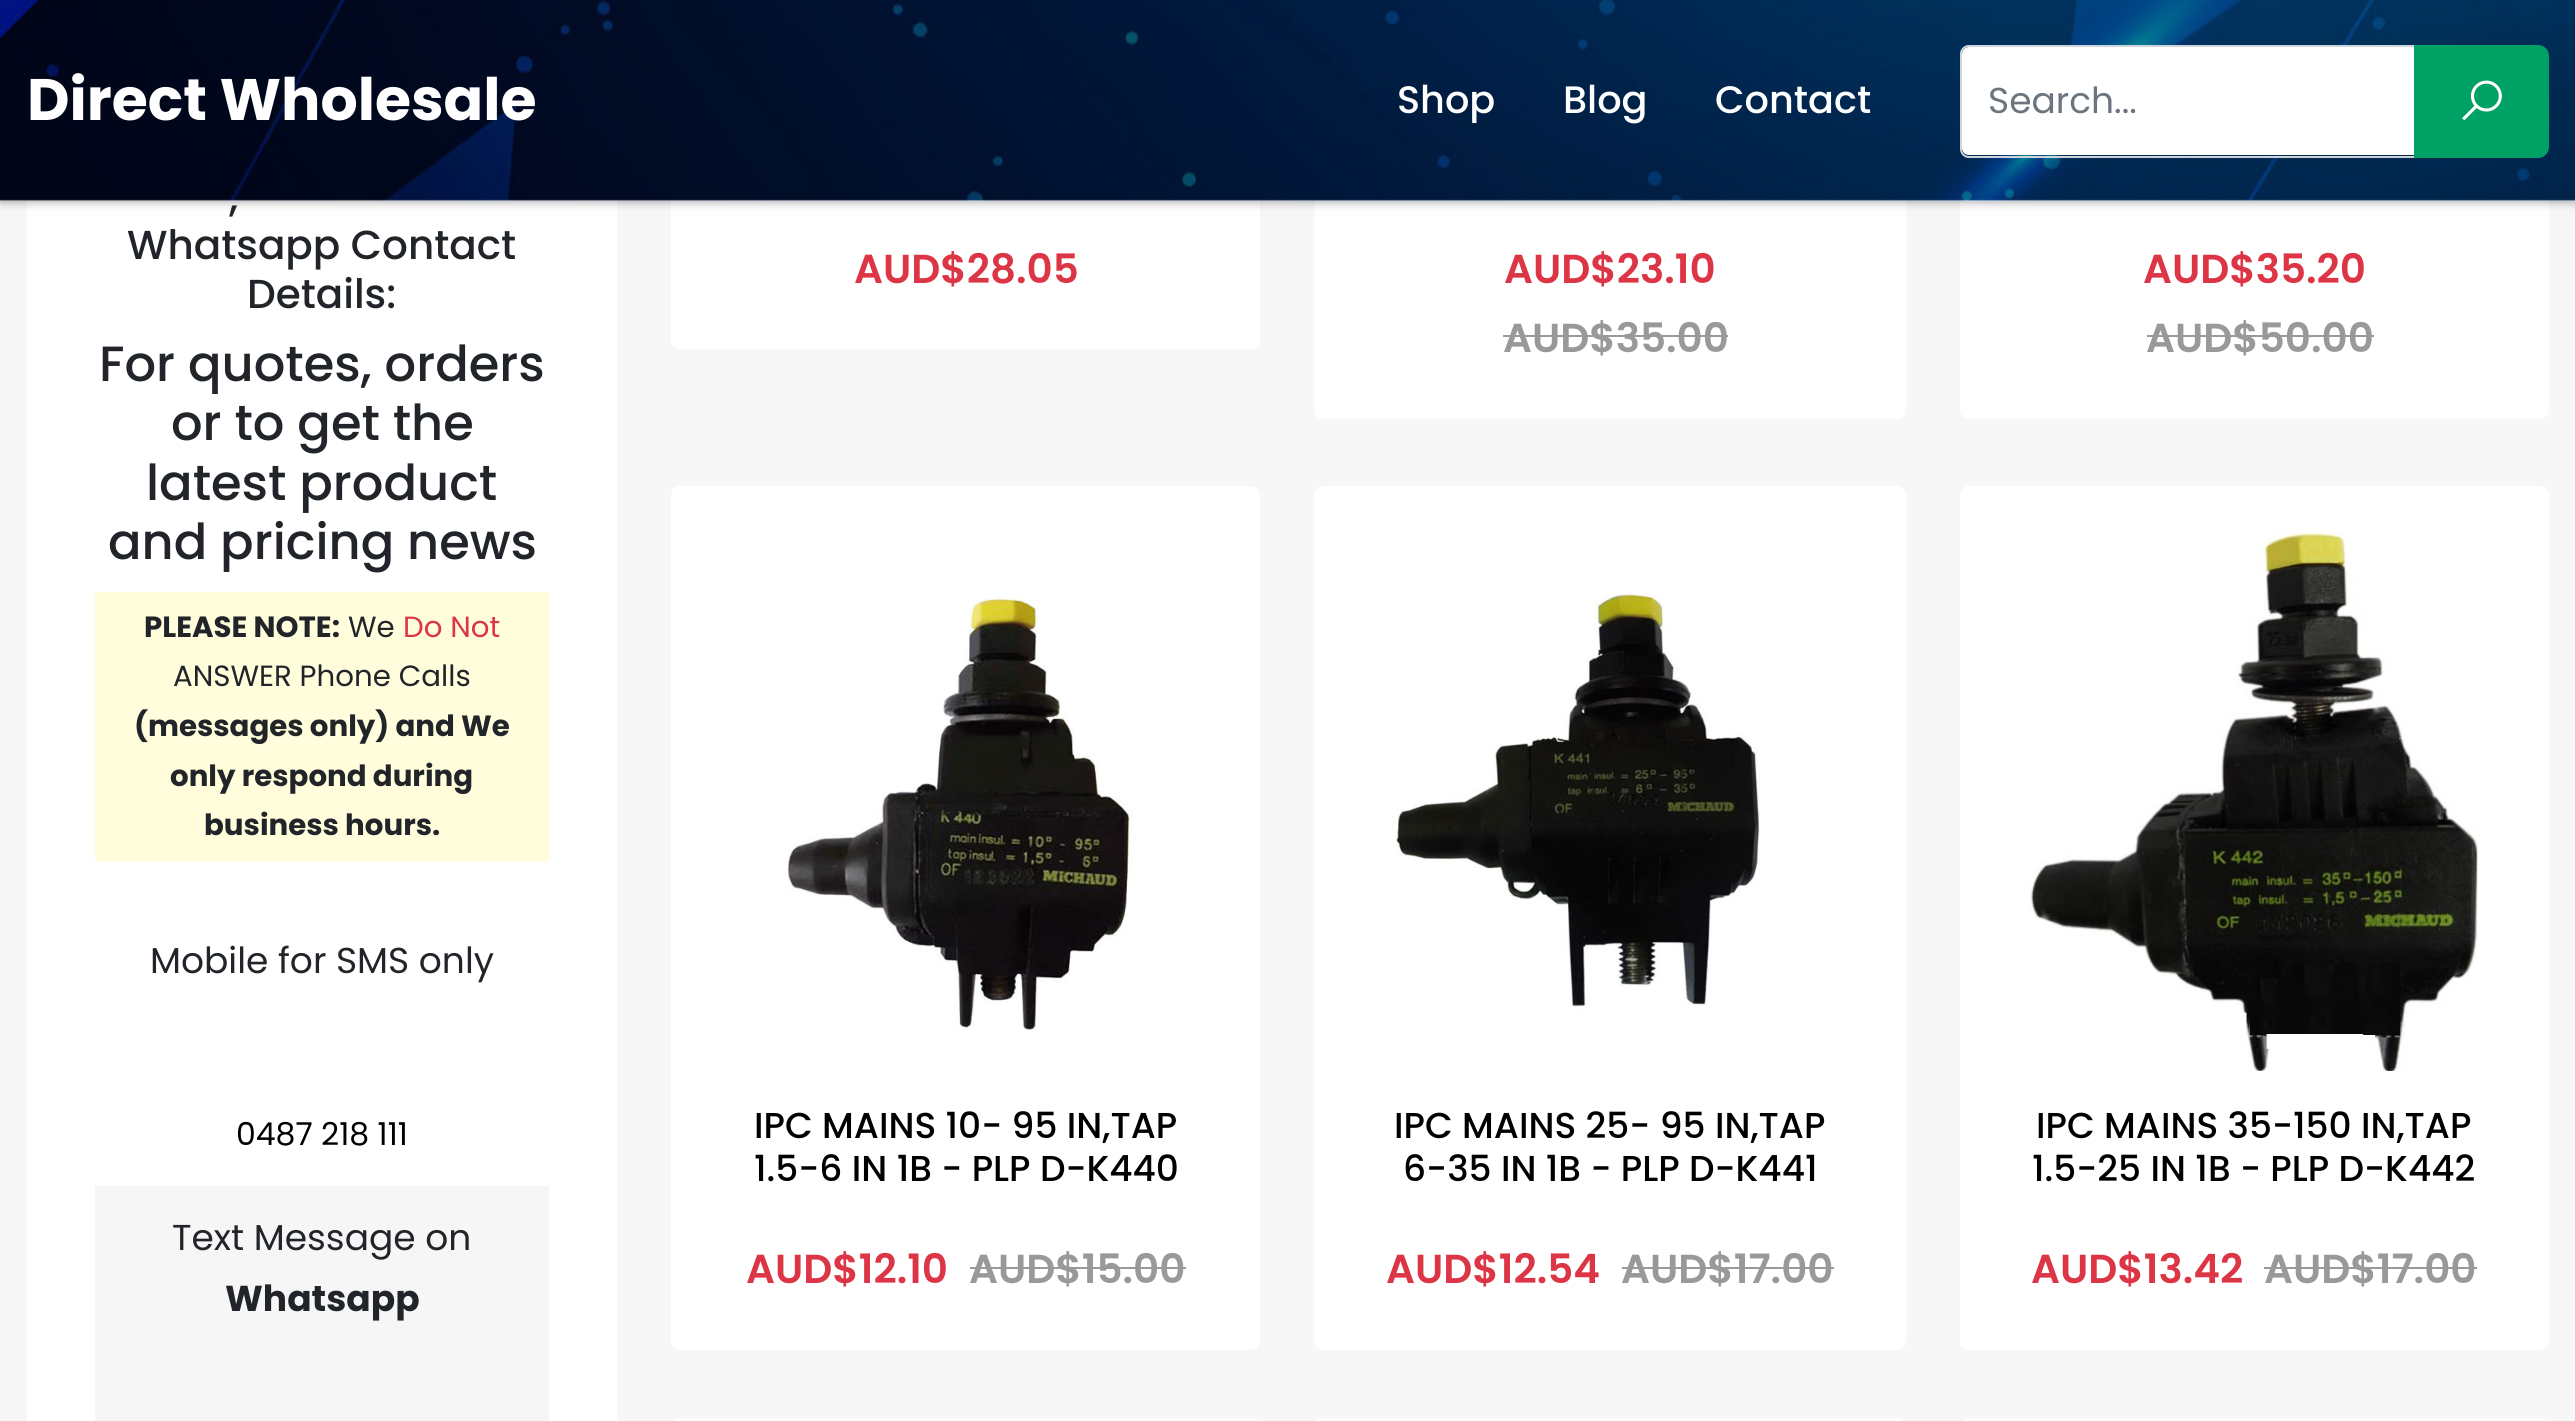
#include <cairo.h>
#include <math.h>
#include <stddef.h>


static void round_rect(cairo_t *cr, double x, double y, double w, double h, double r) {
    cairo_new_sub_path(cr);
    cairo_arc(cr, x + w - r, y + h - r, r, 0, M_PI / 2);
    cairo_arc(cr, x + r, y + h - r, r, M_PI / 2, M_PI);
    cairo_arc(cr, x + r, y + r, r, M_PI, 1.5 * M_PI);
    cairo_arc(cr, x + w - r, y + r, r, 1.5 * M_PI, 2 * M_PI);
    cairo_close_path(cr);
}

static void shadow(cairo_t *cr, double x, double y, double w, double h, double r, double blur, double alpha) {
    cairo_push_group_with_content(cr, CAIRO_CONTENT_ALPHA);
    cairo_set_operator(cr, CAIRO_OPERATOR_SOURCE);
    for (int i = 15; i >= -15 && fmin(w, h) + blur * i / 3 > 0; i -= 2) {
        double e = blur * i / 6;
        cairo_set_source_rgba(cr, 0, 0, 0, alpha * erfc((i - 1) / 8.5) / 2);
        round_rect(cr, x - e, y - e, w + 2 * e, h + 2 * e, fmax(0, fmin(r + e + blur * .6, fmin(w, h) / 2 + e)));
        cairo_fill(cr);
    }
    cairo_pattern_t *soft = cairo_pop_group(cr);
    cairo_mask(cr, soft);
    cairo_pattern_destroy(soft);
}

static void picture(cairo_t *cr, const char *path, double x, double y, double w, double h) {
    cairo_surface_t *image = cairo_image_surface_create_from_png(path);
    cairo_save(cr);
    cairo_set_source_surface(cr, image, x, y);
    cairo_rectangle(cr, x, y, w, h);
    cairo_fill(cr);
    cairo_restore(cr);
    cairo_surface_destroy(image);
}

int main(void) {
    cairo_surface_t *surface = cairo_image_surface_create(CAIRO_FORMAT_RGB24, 2575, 1421);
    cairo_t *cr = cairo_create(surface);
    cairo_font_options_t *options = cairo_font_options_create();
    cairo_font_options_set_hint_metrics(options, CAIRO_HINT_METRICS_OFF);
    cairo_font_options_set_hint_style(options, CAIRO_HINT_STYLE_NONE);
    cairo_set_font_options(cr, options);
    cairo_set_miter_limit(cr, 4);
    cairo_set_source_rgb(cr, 0.965, 0.965, 0.965);
    cairo_paint(cr);
    cairo_set_source_rgb(cr, 1, 1, 1);
    cairo_rectangle(cr, 27, 199, 590, 1222);
    cairo_fill(cr);
    round_rect(cr, 671, -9, 589, 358, 9);
    cairo_fill(cr);
    round_rect(cr, 1314, -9, 592, 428, 9);
    cairo_fill(cr);
    round_rect(cr, 1960, -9, 589, 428, 9);
    cairo_fill(cr);
    cairo_set_source_rgb(cr, 0, 0, 0);
    shadow(cr, 0, 0, 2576, 200, 0, 5.5, 0.49);
    picture(cr, "img1.png", 0, 0, 2575, 201);
    cairo_set_source_rgba(cr, 0, 0, 0, 0.4);
    cairo_rectangle(cr, 0, 0, 2575, 200);
    cairo_fill(cr);
    cairo_select_font_face(cr, "Poppins", CAIRO_FONT_SLANT_NORMAL, CAIRO_FONT_WEIGHT_BOLD);
    cairo_set_font_size(cr, 58.5);
    cairo_set_source_rgb(cr, 1, 1, 1);
    cairo_move_to(cr, 27, 120);
    cairo_show_text(cr, "Direct Wholesale");
    cairo_select_font_face(cr, "Poppins Medium", CAIRO_FONT_SLANT_NORMAL, CAIRO_FONT_WEIGHT_NORMAL);
    cairo_set_font_size(cr, 38.25);
    cairo_move_to(cr, 1397, 113);
    cairo_show_text(cr, "Shop");
    cairo_move_to(cr, 1563, 113);
    cairo_show_text(cr, "Blog");
    cairo_move_to(cr, 1715, 113);
    cairo_show_text(cr, "Contact");
    cairo_new_path(cr);
    cairo_move_to(cr, 1969, 47);
    cairo_line_to(cr, 2414, 47);
    cairo_line_to(cr, 2414, 155);
    cairo_line_to(cr, 1969, 155);
    cairo_curve_to(cr, 1965, 155, 1962, 152, 1962, 148);
    cairo_line_to(cr, 1962, 54);
    cairo_curve_to(cr, 1962, 50, 1965, 47, 1969, 47);
    cairo_close_path(cr);
    cairo_fill(cr);
    cairo_new_path(cr);
    cairo_move_to(cr, 1969, 46);
    cairo_line_to(cr, 2416, 46);
    cairo_line_to(cr, 2416, 157);
    cairo_line_to(cr, 1969, 157);
    cairo_curve_to(cr, 1964.5, 157, 1961, 153.5, 1961, 149);
    cairo_line_to(cr, 1961, 54);
    cairo_curve_to(cr, 1961, 49.5, 1964.5, 46, 1969, 46);
    cairo_close_path(cr);
    cairo_set_source_rgb(cr, 0.808, 0.831, 0.855);
    cairo_stroke(cr);
    cairo_select_font_face(cr, "Poppins", CAIRO_FONT_SLANT_NORMAL, CAIRO_FONT_WEIGHT_NORMAL);
    cairo_set_font_size(cr, 36);
    cairo_set_source_rgb(cr, 0.424, 0.459, 0.49);
    cairo_move_to(cr, 1988, 113);
    cairo_show_text(cr, "Search...");
    cairo_set_source_rgb(cr, 0, 0.631, 0.392);
    cairo_new_path(cr);
    cairo_move_to(cr, 2415, 46);
    cairo_line_to(cr, 2538, 46);
    cairo_curve_to(cr, 2543.5, 46, 2548, 50.5, 2548, 56);
    cairo_line_to(cr, 2548, 147);
    cairo_curve_to(cr, 2548, 152.5, 2543.5, 157, 2538, 157);
    cairo_line_to(cr, 2415, 157);
    cairo_close_path(cr);
    cairo_fill_preserve(cr);
    cairo_stroke(cr);
    picture(cr, "img2.png", 2462, 80, 40, 41);
    cairo_select_font_face(cr, "Poppins Medium", CAIRO_FONT_SLANT_NORMAL, CAIRO_FONT_WEIGHT_NORMAL);
    cairo_set_font_size(cr, 40.5);
    cairo_set_source_rgb(cr, 0.129, 0.145, 0.161);
    cairo_move_to(cr, 229, 211);
    cairo_show_text(cr, ",");
    cairo_move_to(cr, 127, 259);
    cairo_show_text(cr, "Whatsapp Contact");
    cairo_move_to(cr, 247, 308);
    cairo_show_text(cr, "Details:");
    cairo_set_font_size(cr, 49.5);
    cairo_move_to(cr, 99, 381);
    cairo_show_text(cr, "For quotes, orders");
    cairo_move_to(cr, 171, 440);
    cairo_show_text(cr, "or to get the");
    cairo_move_to(cr, 146, 500);
    cairo_show_text(cr, "latest product");
    cairo_move_to(cr, 108, 559);
    cairo_show_text(cr, "and pricing news");
    cairo_set_source_rgb(cr, 1, 0.992, 0.863);
    cairo_rectangle(cr, 95, 592, 454, 270);
    cairo_fill(cr);
    cairo_select_font_face(cr, "Poppins", CAIRO_FONT_SLANT_NORMAL, CAIRO_FONT_WEIGHT_BOLD);
    cairo_set_font_size(cr, 29.25);
    cairo_set_source_rgb(cr, 0.129, 0.145, 0.161);
    cairo_move_to(cr, 144, 637);
    cairo_show_text(cr, "PLEASE NOTE:");
    cairo_select_font_face(cr, "Poppins", CAIRO_FONT_SLANT_NORMAL, CAIRO_FONT_WEIGHT_NORMAL);
    cairo_move_to(cr, 348, 637);
    cairo_show_text(cr, "We");
    cairo_set_source_rgb(cr, 0.863, 0.208, 0.271);
    cairo_move_to(cr, 403, 637);
    cairo_show_text(cr, "Do Not");
    cairo_set_source_rgb(cr, 0.129, 0.145, 0.161);
    cairo_move_to(cr, 173, 686);
    cairo_show_text(cr, "ANSWER Phone Calls");
    cairo_select_font_face(cr, "Poppins", CAIRO_FONT_SLANT_NORMAL, CAIRO_FONT_WEIGHT_BOLD);
    cairo_move_to(cr, 134, 736);
    cairo_show_text(cr, "(messages only) and We");
    cairo_move_to(cr, 170, 786);
    cairo_show_text(cr, "only respond during");
    cairo_move_to(cr, 204, 835);
    cairo_show_text(cr, "business hours.");
    cairo_select_font_face(cr, "Poppins", CAIRO_FONT_SLANT_NORMAL, CAIRO_FONT_WEIGHT_NORMAL);
    cairo_set_font_size(cr, 36);
    cairo_move_to(cr, 150, 973);
    cairo_show_text(cr, "Mobile for SMS only");
    cairo_set_font_size(cr, 31.5);
    cairo_set_source_rgb(cr, 0, 0, 0);
    cairo_move_to(cr, 236, 1145);
    cairo_show_text(cr, "0487 218 111");
    cairo_set_source_rgb(cr, 0.961, 0.961, 0.961);
    cairo_rectangle(cr, 95, 1186, 454, 235);
    cairo_fill(cr);
    cairo_set_font_size(cr, 36);
    cairo_set_source_rgb(cr, 0.129, 0.145, 0.161);
    cairo_move_to(cr, 172, 1250);
    cairo_show_text(cr, "Text Message on");
    cairo_select_font_face(cr, "Poppins", CAIRO_FONT_SLANT_NORMAL, CAIRO_FONT_WEIGHT_BOLD);
    cairo_move_to(cr, 225, 1311);
    cairo_show_text(cr, "Whatsapp");
    cairo_select_font_face(cr, "Poppins SemiBold", CAIRO_FONT_SLANT_NORMAL, CAIRO_FONT_WEIGHT_NORMAL);
    cairo_set_font_size(cr, 40.5);
    cairo_set_source_rgb(cr, 0.863, 0.208, 0.271);
    cairo_move_to(cr, 854, 283);
    cairo_show_text(cr, "AUD$28.05");
    cairo_move_to(cr, 1504, 283);
    cairo_show_text(cr, "AUD$23.10");
    cairo_set_source_rgb(cr, 0.6, 0.6, 0.6);
    cairo_move_to(cr, 1503, 352);
    cairo_show_text(cr, "AUD$35.00");
    cairo_rectangle(cr, 1503, 335, 225, 2);
    cairo_fill(cr);
    cairo_set_source_rgb(cr, 0.863, 0.208, 0.271);
    cairo_move_to(cr, 2143, 283);
    cairo_show_text(cr, "AUD$35.20");
    cairo_set_source_rgb(cr, 0.6, 0.6, 0.6);
    cairo_move_to(cr, 2146, 352);
    cairo_show_text(cr, "AUD$50.00");
    cairo_rectangle(cr, 2147, 335, 227, 2);
    cairo_fill(cr);
    cairo_set_source_rgb(cr, 1, 1, 1);
    round_rect(cr, 671, 486, 589, 864, 9);
    cairo_fill(cr);
    picture(cr, "img3.png", 787, 595, 347, 435);
    cairo_select_font_face(cr, "Poppins Medium", CAIRO_FONT_SLANT_NORMAL, CAIRO_FONT_WEIGHT_NORMAL);
    cairo_set_font_size(cr, 36);
    cairo_set_source_rgb(cr, 0, 0, 0);
    cairo_move_to(cr, 754, 1138);
    cairo_show_text(cr, "IPC MAINS 10- 95 IN,TAP");
    cairo_move_to(cr, 754, 1181);
    cairo_show_text(cr, "1.5-6 IN 1B - PLP D-K440");
    cairo_select_font_face(cr, "Poppins SemiBold", CAIRO_FONT_SLANT_NORMAL, CAIRO_FONT_WEIGHT_NORMAL);
    cairo_set_font_size(cr, 40.5);
    cairo_set_source_rgb(cr, 0.863, 0.208, 0.271);
    cairo_move_to(cr, 746, 1283);
    cairo_show_text(cr, "AUD$12.10");
    cairo_set_source_rgb(cr, 0.6, 0.6, 0.6);
    cairo_move_to(cr, 969, 1283);
    cairo_show_text(cr, "AUD$15.00");
    cairo_rectangle(cr, 970, 1267, 216, 2);
    cairo_fill(cr);
    cairo_set_source_rgb(cr, 1, 1, 1);
    round_rect(cr, 1314, 486, 592, 864, 9);
    cairo_fill(cr);
    picture(cr, "img4.png", 1396, 594, 365, 416);
    cairo_select_font_face(cr, "Poppins Medium", CAIRO_FONT_SLANT_NORMAL, CAIRO_FONT_WEIGHT_NORMAL);
    cairo_set_font_size(cr, 36);
    cairo_set_source_rgb(cr, 0, 0, 0);
    cairo_move_to(cr, 1394, 1138);
    cairo_show_text(cr, "IPC MAINS 25- 95 IN,TAP");
    cairo_move_to(cr, 1403, 1181);
    cairo_show_text(cr, "6-35 IN 1B - PLP D-K441");
    cairo_select_font_face(cr, "Poppins SemiBold", CAIRO_FONT_SLANT_NORMAL, CAIRO_FONT_WEIGHT_NORMAL);
    cairo_set_font_size(cr, 40.5);
    cairo_set_source_rgb(cr, 0.863, 0.208, 0.271);
    cairo_move_to(cr, 1386, 1283);
    cairo_show_text(cr, "AUD$12.54");
    cairo_set_source_rgb(cr, 0.6, 0.6, 0.6);
    cairo_move_to(cr, 1621, 1283);
    cairo_show_text(cr, "AUD$17.00");
    cairo_rectangle(cr, 1622, 1267, 212, 2);
    cairo_fill(cr);
    cairo_set_source_rgb(cr, 1, 1, 1);
    round_rect(cr, 1960, 486, 589, 864, 9);
    cairo_fill(cr);
    picture(cr, "img5.png", 2029, 531, 449, 540);
    cairo_select_font_face(cr, "Poppins Medium", CAIRO_FONT_SLANT_NORMAL, CAIRO_FONT_WEIGHT_NORMAL);
    cairo_set_font_size(cr, 36);
    cairo_set_source_rgb(cr, 0, 0, 0);
    cairo_move_to(cr, 2036, 1138);
    cairo_show_text(cr, "IPC MAINS 35-150 IN,TAP");
    cairo_move_to(cr, 2032, 1181);
    cairo_show_text(cr, "1.5-25 IN 1B - PLP D-K442");
    cairo_select_font_face(cr, "Poppins SemiBold", CAIRO_FONT_SLANT_NORMAL, CAIRO_FONT_WEIGHT_NORMAL);
    cairo_set_font_size(cr, 40.5);
    cairo_set_source_rgb(cr, 0.863, 0.208, 0.271);
    cairo_move_to(cr, 2031, 1283);
    cairo_show_text(cr, "AUD$13.42");
    cairo_set_source_rgb(cr, 0.6, 0.6, 0.6);
    cairo_move_to(cr, 2264, 1283);
    cairo_show_text(cr, "AUD$17.00");
    cairo_rectangle(cr, 2264, 1267, 213, 2);
    cairo_fill(cr);
    cairo_set_source_rgb(cr, 1, 1, 1);
    round_rect(cr, 671, 1418, 589, 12, 9);
    cairo_fill(cr);
    round_rect(cr, 1314, 1418, 592, 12, 9);
    cairo_fill(cr);
    round_rect(cr, 1960, 1418, 589, 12, 9);
    cairo_fill(cr);
    cairo_surface_write_to_png(surface, "page.png");
    cairo_font_options_destroy(options);
    cairo_destroy(cr);
    cairo_surface_destroy(surface);
    return 0;
}
